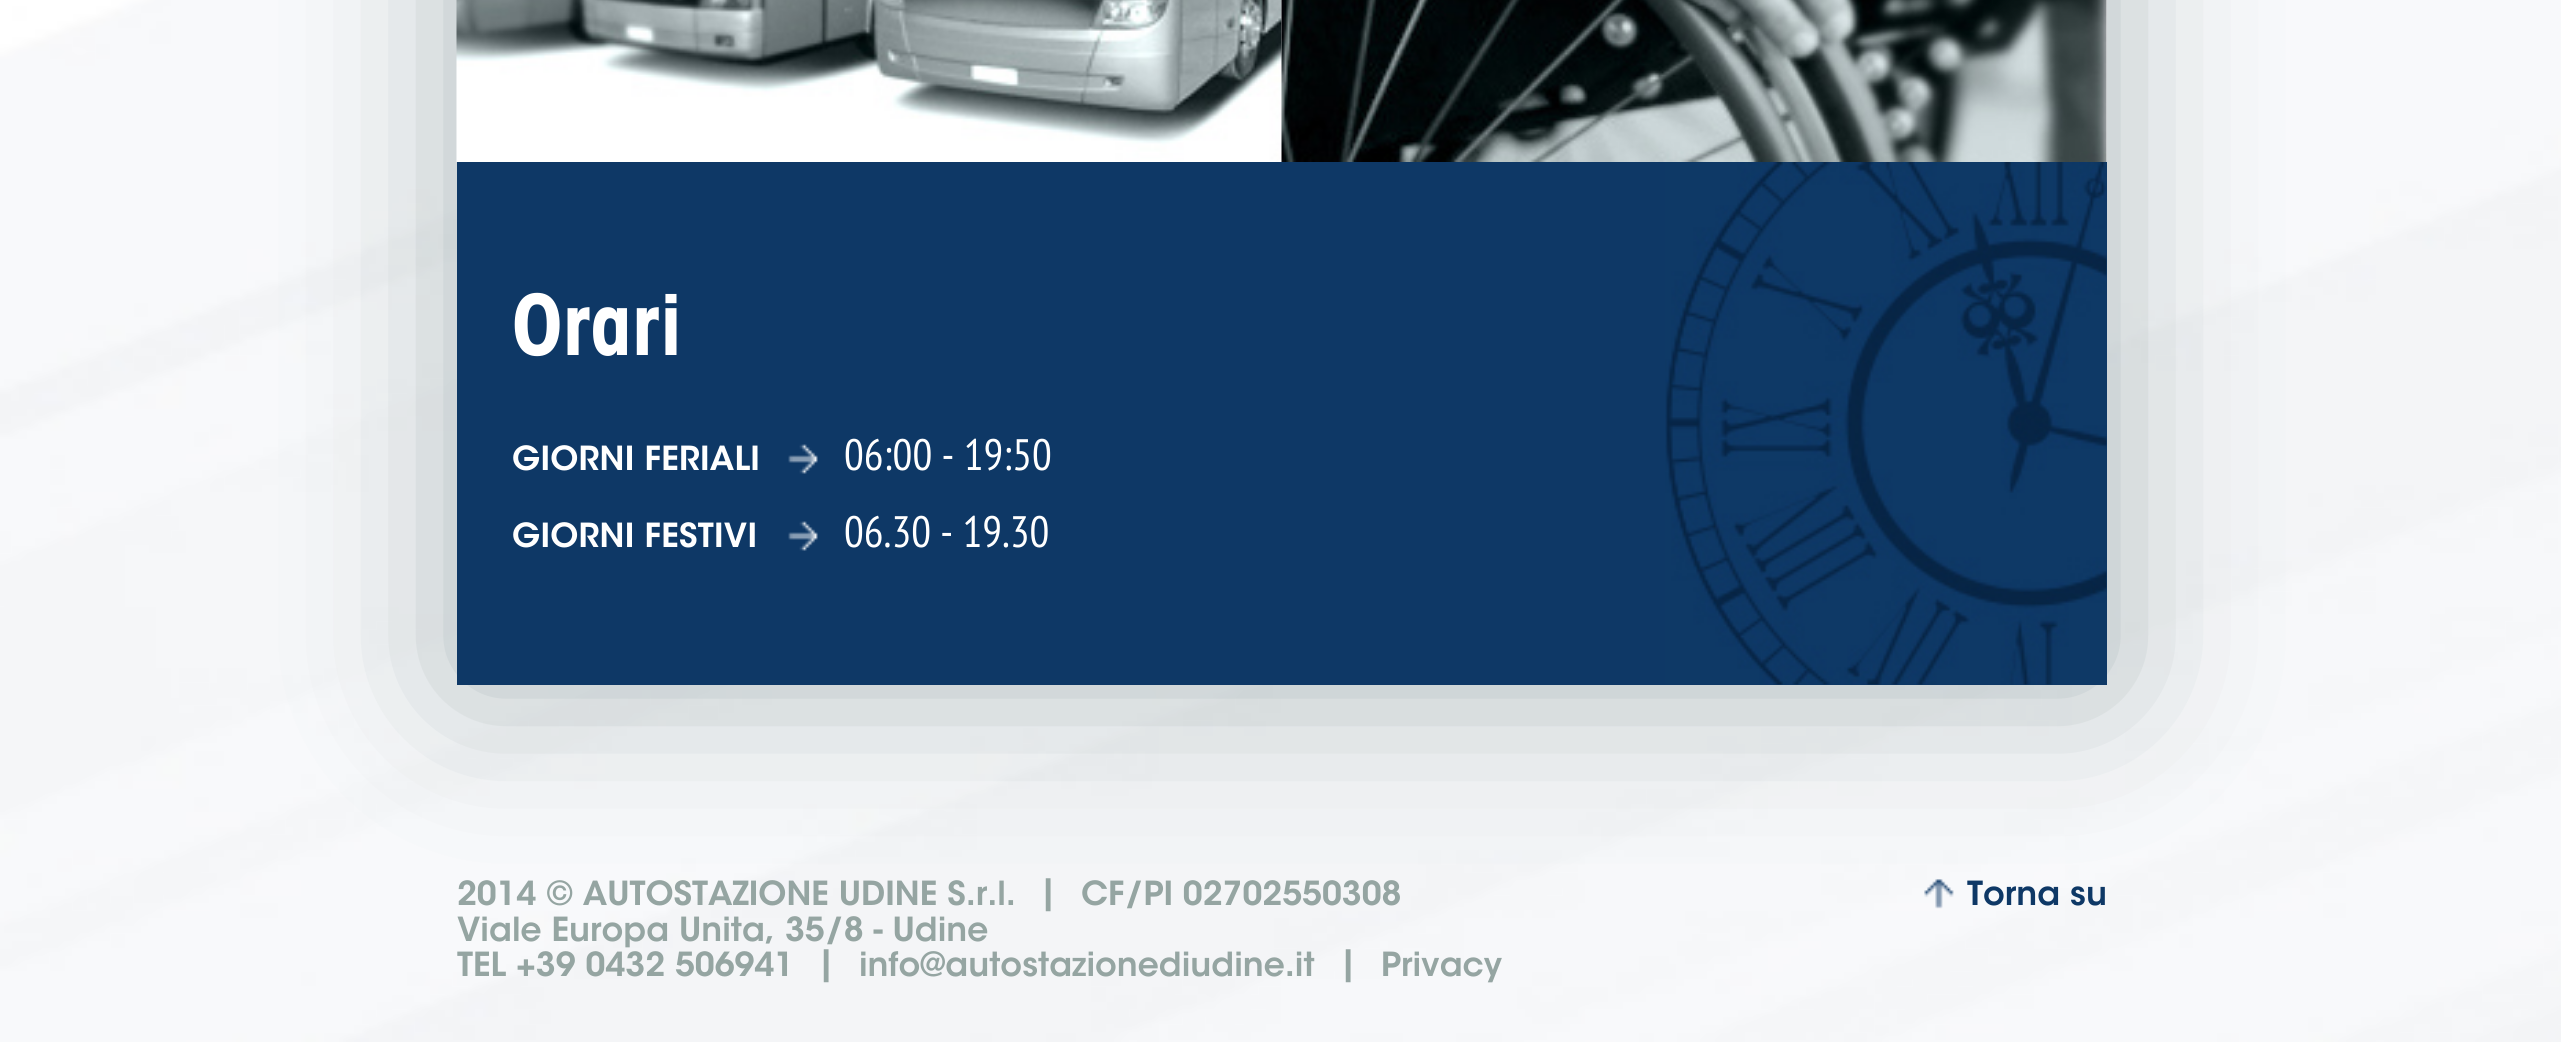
#include <cairo.h>
#include <math.h>
#include <stddef.h>


static void spaced_text(cairo_t *cr, double x, double y, const char *s, double letter, double word) {
    cairo_move_to(cr, x, y);
    while (*s) {
        char ch[5] = {0};
        int n = 0;
        do ch[n++] = *s++; while ((*s & 0xC0) == 0x80);
        cairo_show_text(cr, ch);
        cairo_rel_move_to(cr, letter + word * (*ch == ' '), 0);
    }
}

static void round_rect(cairo_t *cr, double x, double y, double w, double h, double r) {
    cairo_new_sub_path(cr);
    cairo_arc(cr, x + w - r, y + h - r, r, 0, M_PI / 2);
    cairo_arc(cr, x + r, y + h - r, r, M_PI / 2, M_PI);
    cairo_arc(cr, x + r, y + r, r, M_PI, 1.5 * M_PI);
    cairo_arc(cr, x + w - r, y + r, r, 1.5 * M_PI, 2 * M_PI);
    cairo_close_path(cr);
}

static void shadow(cairo_t *cr, double x, double y, double w, double h, double r, double blur, double alpha) {
    cairo_push_group_with_content(cr, CAIRO_CONTENT_ALPHA);
    cairo_set_operator(cr, CAIRO_OPERATOR_SOURCE);
    for (int i = 15; i >= -15 && fmin(w, h) + blur * i / 3 > 0; i -= 2) {
        double e = blur * i / 6;
        cairo_set_source_rgba(cr, 0, 0, 0, alpha * erfc((i - 1) / 8.5) / 2);
        round_rect(cr, x - e, y - e, w + 2 * e, h + 2 * e, fmax(0, fmin(r + e + blur * .6, fmin(w, h) / 2 + e)));
        cairo_fill(cr);
    }
    cairo_pattern_t *soft = cairo_pop_group(cr);
    cairo_mask(cr, soft);
    cairo_pattern_destroy(soft);
}

static void picture(cairo_t *cr, const char *path, double x, double y, double w, double h) {
    cairo_surface_t *image = cairo_image_surface_create_from_png(path);
    cairo_save(cr);
    cairo_set_source_surface(cr, image, x, y);
    cairo_rectangle(cr, x, y, w, h);
    cairo_fill(cr);
    cairo_restore(cr);
    cairo_surface_destroy(image);
}

int main(void) {
    cairo_surface_t *surface = cairo_image_surface_create(CAIRO_FORMAT_RGB24, 2561, 1042);
    cairo_t *cr = cairo_create(surface);
    cairo_font_options_t *options = cairo_font_options_create();
    cairo_font_options_set_hint_metrics(options, CAIRO_HINT_METRICS_OFF);
    cairo_font_options_set_hint_style(options, CAIRO_HINT_STYLE_NONE);
    cairo_set_font_options(cr, options);
    cairo_set_miter_limit(cr, 4);
    cairo_set_source_rgb(cr, 1, 1, 1);
    cairo_paint(cr);
    picture(cr, "img1.png", 0, 0, 2561, 1042);
    picture(cr, "img6.png", 1924, 879, 30, 30);
    cairo_set_source_rgb(cr, 0.569, 0.631, 0.635);
    shadow(cr, 457, -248, 1650, 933, 0, 82.5, 0.74);
    cairo_set_source_rgb(cr, 1, 1, 1);
    cairo_rectangle(cr, 1281, 0, 826, 162);
    cairo_fill(cr);
    picture(cr, "img2.png", 456, 0, 826, 162);
    picture(cr, "img3.png", 1281, 0, 826, 162);
    cairo_set_source_rgb(cr, 0.055, 0.22, 0.4);
    cairo_rectangle(cr, 457, 162, 1650, 523);
    cairo_fill(cr);
    picture(cr, "img4.png", 1665, 162, 442, 523);
    cairo_select_font_face(cr, "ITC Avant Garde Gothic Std", CAIRO_FONT_SLANT_NORMAL, CAIRO_FONT_WEIGHT_BOLD);
    cairo_set_font_size(cr, 82.5);
    cairo_set_source_rgb(cr, 1, 1, 1);
    spaced_text(cr, 512, 355, "Orari", 0.25, 0);
    cairo_select_font_face(cr, "ITC Avant Garde Gothic Std SemiBold", CAIRO_FONT_SLANT_NORMAL, CAIRO_FONT_WEIGHT_NORMAL);
    cairo_set_font_size(cr, 33);
    spaced_text(cr, 512, 470, "GIORNI FERIALI", 0.25, 0);
    picture(cr, "img5.png", 788, 444, 30, 30);
    cairo_select_font_face(cr, "PT Sans Narrow", CAIRO_FONT_SLANT_NORMAL, CAIRO_FONT_WEIGHT_NORMAL);
    cairo_set_font_size(cr, 44);
    cairo_move_to(cr, 844, 470);
    cairo_show_text(cr, "06:00 - 19:50");
    cairo_select_font_face(cr, "ITC Avant Garde Gothic Std SemiBold", CAIRO_FONT_SLANT_NORMAL, CAIRO_FONT_WEIGHT_NORMAL);
    cairo_set_font_size(cr, 33);
    spaced_text(cr, 512, 547, "GIORNI FESTIVI", 0.25, 0);
    picture(cr, "img5.png", 788, 521, 30, 30);
    cairo_select_font_face(cr, "PT Sans Narrow", CAIRO_FONT_SLANT_NORMAL, CAIRO_FONT_WEIGHT_NORMAL);
    cairo_set_font_size(cr, 44);
    cairo_move_to(cr, 844, 547);
    cairo_show_text(cr, "06.30 - 19.30");
    cairo_select_font_face(cr, "ITC Avant Garde Gothic Std SemiBold", CAIRO_FONT_SLANT_NORMAL, CAIRO_FONT_WEIGHT_NORMAL);
    cairo_set_font_size(cr, 33);
    cairo_set_source_rgb(cr, 0.584, 0.647, 0.635);
    cairo_move_to(cr, 457, 905);
    cairo_show_text(cr, "2014 © AUTOSTAZIONE UDINE S.r.l.");
    cairo_move_to(cr, 1039, 903);
    cairo_show_text(cr, "|");
    cairo_move_to(cr, 1081, 905);
    cairo_show_text(cr, "CF/PI 02702550308");
    cairo_move_to(cr, 457, 941);
    cairo_show_text(cr, "Viale Europa Unita, 35/8 - Udine");
    cairo_move_to(cr, 457, 976);
    cairo_show_text(cr, "TEL +39 0432 506941");
    cairo_move_to(cr, 817, 974);
    cairo_show_text(cr, "|");
    cairo_move_to(cr, 859, 976);
    cairo_show_text(cr, "info@autostazionediudine.it");
    cairo_move_to(cr, 1339, 974);
    cairo_show_text(cr, "|");
    cairo_move_to(cr, 1381, 976);
    cairo_show_text(cr, "Privacy");
    cairo_set_source_rgb(cr, 0.055, 0.22, 0.4);
    cairo_move_to(cr, 1967, 905);
    cairo_show_text(cr, "Torna su");
    cairo_surface_write_to_png(surface, "page.png");
    cairo_font_options_destroy(options);
    cairo_destroy(cr);
    cairo_surface_destroy(surface);
    return 0;
}
